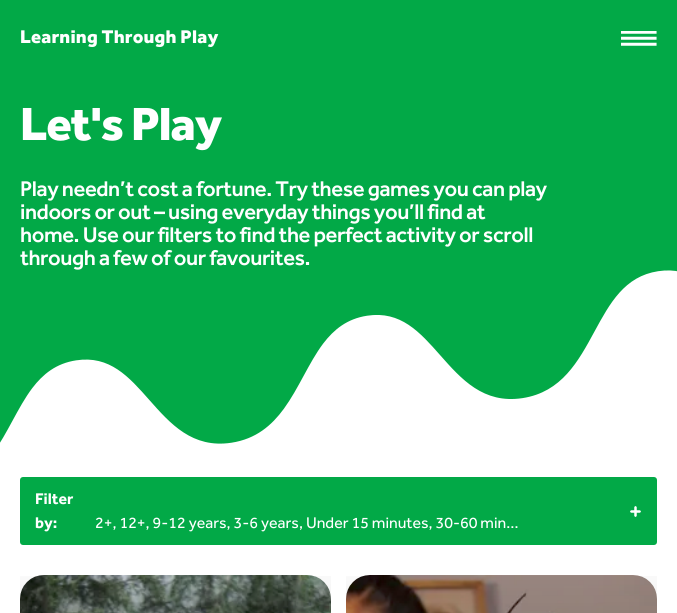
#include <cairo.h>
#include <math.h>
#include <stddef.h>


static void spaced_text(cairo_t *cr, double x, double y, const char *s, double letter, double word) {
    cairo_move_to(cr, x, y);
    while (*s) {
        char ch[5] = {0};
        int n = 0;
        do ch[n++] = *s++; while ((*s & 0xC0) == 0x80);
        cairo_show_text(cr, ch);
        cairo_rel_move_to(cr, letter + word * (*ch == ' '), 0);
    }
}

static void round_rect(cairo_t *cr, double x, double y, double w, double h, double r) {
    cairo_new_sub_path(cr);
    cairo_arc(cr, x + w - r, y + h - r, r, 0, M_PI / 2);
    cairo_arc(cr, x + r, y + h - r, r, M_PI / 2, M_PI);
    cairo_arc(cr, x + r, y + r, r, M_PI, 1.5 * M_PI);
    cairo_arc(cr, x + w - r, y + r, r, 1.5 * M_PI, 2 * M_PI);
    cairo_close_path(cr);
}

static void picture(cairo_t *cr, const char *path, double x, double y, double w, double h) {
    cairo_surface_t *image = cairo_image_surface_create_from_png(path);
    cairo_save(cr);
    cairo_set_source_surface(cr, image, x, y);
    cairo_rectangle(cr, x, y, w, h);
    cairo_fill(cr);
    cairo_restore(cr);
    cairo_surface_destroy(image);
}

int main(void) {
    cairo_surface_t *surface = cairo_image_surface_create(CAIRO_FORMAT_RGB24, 677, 613);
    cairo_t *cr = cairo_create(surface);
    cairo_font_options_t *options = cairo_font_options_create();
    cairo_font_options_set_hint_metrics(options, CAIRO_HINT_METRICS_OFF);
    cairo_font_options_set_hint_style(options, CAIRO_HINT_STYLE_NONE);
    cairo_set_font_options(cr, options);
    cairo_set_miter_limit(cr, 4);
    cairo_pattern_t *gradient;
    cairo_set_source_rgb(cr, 1, 1, 1);
    cairo_paint(cr);
    cairo_set_source_rgb(cr, 0.008, 0.663, 0.278);
    cairo_rectangle(cr, 0, 0, 677, 270);
    cairo_fill(cr);
    cairo_select_font_face(cr, "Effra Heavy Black", CAIRO_FONT_SLANT_NORMAL, CAIRO_FONT_WEIGHT_NORMAL);
    cairo_set_font_size(cr, 19);
    cairo_set_source_rgb(cr, 1, 1, 1);
    spaced_text(cr, 20, 43, "Learning Through Play", 0.2, 0);
    picture(cr, "img1.png", 621, 31, 36, 15);
    cairo_set_font_size(cr, 48);
    spaced_text(cr, 20, 140, "Let's Play", -1, 0);
    cairo_select_font_face(cr, "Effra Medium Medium", CAIRO_FONT_SLANT_NORMAL, CAIRO_FONT_WEIGHT_NORMAL);
    cairo_set_font_size(cr, 22);
    spaced_text(cr, 20, 196, "Play needn’t cost a fortune. Try these games you can play", -0.45, 0);
    spaced_text(cr, 20, 219, "indoors or out – using everyday things you’ll find at", -0.45, 0);
    spaced_text(cr, 20, 242, "home. Use our filters to find the perfect activity or scroll", -0.45, 0);
    spaced_text(cr, 20, 265, "through a few of our favourites.", -0.45, 0);
    picture(cr, "img2.png", 0, 270, 677, 174);
    cairo_set_source_rgb(cr, 0.008, 0.663, 0.278);
    round_rect(cr, 20, 477, 637, 68, 3);
    cairo_fill(cr);
    cairo_select_font_face(cr, "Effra", CAIRO_FONT_SLANT_NORMAL, CAIRO_FONT_WEIGHT_BOLD);
    cairo_set_font_size(cr, 16);
    cairo_set_source_rgb(cr, 1, 1, 1);
    cairo_move_to(cr, 35, 504);
    cairo_show_text(cr, "Filter");
    cairo_move_to(cr, 35, 528);
    cairo_show_text(cr, "by:");
    cairo_select_font_face(cr, "Effra", CAIRO_FONT_SLANT_NORMAL, CAIRO_FONT_WEIGHT_NORMAL);
    cairo_move_to(cr, 95, 528);
    cairo_show_text(cr, "2+, 12+, 9-12 years, 3-6 years, Under 15 minutes, 30-60 min…");
    picture(cr, "img3.png", 630, 506, 11, 11);
    picture(cr, "img4.png", 20, 575, 311, 38);
    gradient = cairo_pattern_create_linear(175, 575, 176, 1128);
    cairo_pattern_add_color_stop_rgba(gradient, 0, 0, 0, 0, 0.02);
    cairo_pattern_add_color_stop_rgba(gradient, 1, 0, 0, 0, 0.6);
    cairo_set_source(cr, gradient);
    cairo_pattern_destroy(gradient);
    cairo_rectangle(cr, 20, 576, 311, 37);
    cairo_fill(cr);
    picture(cr, "img5.png", 346, 575, 311, 38);
    gradient = cairo_pattern_create_linear(501, 575, 502, 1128);
    cairo_pattern_add_color_stop_rgba(gradient, 0, 0, 0, 0, 0.02);
    cairo_pattern_add_color_stop_rgba(gradient, 1, 0, 0, 0, 0.6);
    cairo_set_source(cr, gradient);
    cairo_pattern_destroy(gradient);
    cairo_rectangle(cr, 346, 576, 311, 37);
    cairo_fill(cr);
    cairo_surface_write_to_png(surface, "page.png");
    cairo_font_options_destroy(options);
    cairo_destroy(cr);
    cairo_surface_destroy(surface);
    return 0;
}
